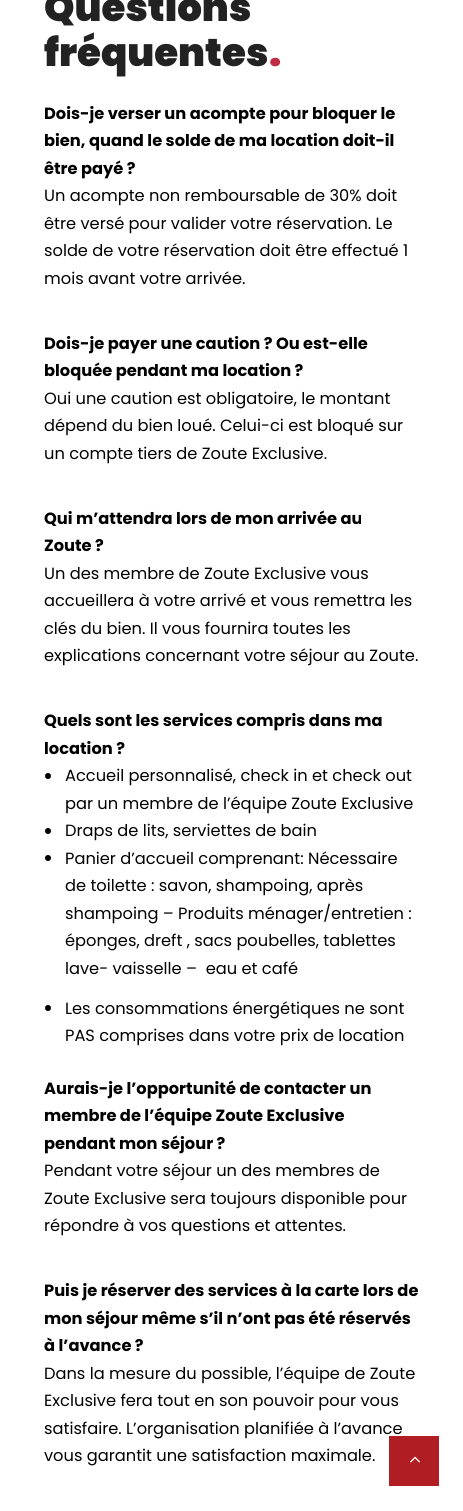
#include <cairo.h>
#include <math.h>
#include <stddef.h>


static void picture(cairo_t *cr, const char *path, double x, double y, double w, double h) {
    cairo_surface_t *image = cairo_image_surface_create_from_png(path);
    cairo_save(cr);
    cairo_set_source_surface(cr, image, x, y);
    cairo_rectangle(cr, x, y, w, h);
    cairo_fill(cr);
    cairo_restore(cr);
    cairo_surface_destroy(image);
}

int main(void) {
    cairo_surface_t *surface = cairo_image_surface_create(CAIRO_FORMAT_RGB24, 463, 1511);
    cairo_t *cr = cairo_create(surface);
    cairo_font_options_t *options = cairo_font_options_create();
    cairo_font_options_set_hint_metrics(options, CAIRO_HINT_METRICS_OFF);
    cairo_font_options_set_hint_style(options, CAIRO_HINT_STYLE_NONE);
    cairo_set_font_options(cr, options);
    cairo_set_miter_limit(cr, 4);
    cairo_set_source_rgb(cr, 1, 1, 1);
    cairo_paint(cr);
    cairo_select_font_face(cr, "Poppins Black", CAIRO_FONT_SLANT_NORMAL, CAIRO_FONT_WEIGHT_NORMAL);
    cairo_set_font_size(cr, 38.75);
    cairo_set_source_rgb(cr, 0.133, 0.133, 0.133);
    cairo_move_to(cr, 44, 21);
    cairo_show_text(cr, "Questions");
    cairo_move_to(cr, 44, 66);
    cairo_show_text(cr, "fréquentes");
    cairo_set_source_rgb(cr, 0.757, 0.173, 0.271);
    cairo_move_to(cr, 269, 66);
    cairo_show_text(cr, ".");
    cairo_select_font_face(cr, "Poppins", CAIRO_FONT_SLANT_NORMAL, CAIRO_FONT_WEIGHT_BOLD);
    cairo_set_font_size(cr, 16.25);
    cairo_set_source_rgb(cr, 0, 0, 0);
    cairo_move_to(cr, 44, 119);
    cairo_show_text(cr, "Dois-je verser un acompte pour bloquer le");
    cairo_move_to(cr, 44, 146);
    cairo_show_text(cr, "bien, quand le solde de ma location doit-il");
    cairo_move_to(cr, 44, 174);
    cairo_show_text(cr, "être payé ?");
    cairo_select_font_face(cr, "Poppins", CAIRO_FONT_SLANT_NORMAL, CAIRO_FONT_WEIGHT_NORMAL);
    cairo_move_to(cr, 44, 201);
    cairo_show_text(cr, "Un acompte non remboursable de 30% doit");
    cairo_move_to(cr, 44, 229);
    cairo_show_text(cr, "être versé pour valider votre réservation. Le");
    cairo_move_to(cr, 44, 256);
    cairo_show_text(cr, "solde de votre réservation doit être effectué 1");
    cairo_move_to(cr, 44, 284);
    cairo_show_text(cr, "mois avant votre arrivée.");
    cairo_select_font_face(cr, "Poppins", CAIRO_FONT_SLANT_NORMAL, CAIRO_FONT_WEIGHT_BOLD);
    cairo_move_to(cr, 44, 349);
    cairo_show_text(cr, "Dois-je payer une caution ? Ou est-elle");
    cairo_move_to(cr, 44, 376);
    cairo_show_text(cr, "bloquée pendant ma location ?");
    cairo_select_font_face(cr, "Poppins", CAIRO_FONT_SLANT_NORMAL, CAIRO_FONT_WEIGHT_NORMAL);
    cairo_move_to(cr, 44, 404);
    cairo_show_text(cr, "Oui une caution est obligatoire, le montant");
    cairo_move_to(cr, 44, 431);
    cairo_show_text(cr, "dépend du bien loué. Celui-ci est bloqué sur");
    cairo_move_to(cr, 44, 459);
    cairo_show_text(cr, "un compte tiers de Zoute Exclusive.");
    cairo_select_font_face(cr, "Poppins", CAIRO_FONT_SLANT_NORMAL, CAIRO_FONT_WEIGHT_BOLD);
    cairo_move_to(cr, 44, 524);
    cairo_show_text(cr, "Qui m’attendra lors de mon arrivée au");
    cairo_move_to(cr, 44, 551);
    cairo_show_text(cr, "Zoute ?");
    cairo_select_font_face(cr, "Poppins", CAIRO_FONT_SLANT_NORMAL, CAIRO_FONT_WEIGHT_NORMAL);
    cairo_move_to(cr, 44, 579);
    cairo_show_text(cr, "Un des membre de Zoute Exclusive vous");
    cairo_move_to(cr, 44, 606);
    cairo_show_text(cr, "accueillera à votre arrivé et vous remettra les");
    cairo_move_to(cr, 44, 634);
    cairo_show_text(cr, "clés du bien. Il vous fournira toutes les");
    cairo_move_to(cr, 44, 661);
    cairo_show_text(cr, "explications concernant votre séjour au Zoute.");
    cairo_select_font_face(cr, "Poppins", CAIRO_FONT_SLANT_NORMAL, CAIRO_FONT_WEIGHT_BOLD);
    cairo_move_to(cr, 44, 726);
    cairo_show_text(cr, "Quels sont les services compris dans ma");
    cairo_move_to(cr, 44, 754);
    cairo_show_text(cr, "location ?");
    cairo_new_path(cr);
    cairo_arc(cr, 48, 776, 3, 0, 2 * M_PI);
    cairo_fill(cr);
    cairo_select_font_face(cr, "Poppins", CAIRO_FONT_SLANT_NORMAL, CAIRO_FONT_WEIGHT_NORMAL);
    cairo_move_to(cr, 65, 781);
    cairo_show_text(cr, "Accueil personnalisé, check in et check out");
    cairo_move_to(cr, 65, 809);
    cairo_show_text(cr, "par un membre de l’équipe Zoute Exclusive");
    cairo_new_path(cr);
    cairo_arc(cr, 48, 831, 3, 0, 2 * M_PI);
    cairo_fill(cr);
    cairo_move_to(cr, 65, 836);
    cairo_show_text(cr, "Draps de lits, serviettes de bain");
    cairo_new_path(cr);
    cairo_arc(cr, 48, 858, 3, 0, 2 * M_PI);
    cairo_fill(cr);
    cairo_move_to(cr, 65, 864);
    cairo_show_text(cr, "Panier d’accueil comprenant: Nécessaire");
    cairo_move_to(cr, 65, 891);
    cairo_show_text(cr, "de toilette : savon, shampoing, après");
    cairo_move_to(cr, 65, 919);
    cairo_show_text(cr, "shampoing – Produits ménager/entretien :");
    cairo_move_to(cr, 65, 946);
    cairo_show_text(cr, "éponges, dreft , sacs poubelles, tablettes");
    cairo_move_to(cr, 65, 974);
    cairo_show_text(cr, "lave- vaisselle –  eau et café");
    cairo_new_path(cr);
    cairo_arc(cr, 48, 1008, 3, 0, 2 * M_PI);
    cairo_fill(cr);
    cairo_move_to(cr, 65, 1014);
    cairo_show_text(cr, "Les consommations énergétiques ne sont");
    cairo_move_to(cr, 65, 1041);
    cairo_show_text(cr, "PAS comprises dans votre prix de location");
    cairo_select_font_face(cr, "Poppins", CAIRO_FONT_SLANT_NORMAL, CAIRO_FONT_WEIGHT_BOLD);
    cairo_move_to(cr, 44, 1094);
    cairo_show_text(cr, "Aurais-je l’opportunité de contacter un");
    cairo_move_to(cr, 44, 1121);
    cairo_show_text(cr, "membre de l’équipe Zoute Exclusive");
    cairo_move_to(cr, 44, 1149);
    cairo_show_text(cr, "pendant mon séjour ?");
    cairo_select_font_face(cr, "Poppins", CAIRO_FONT_SLANT_NORMAL, CAIRO_FONT_WEIGHT_NORMAL);
    cairo_move_to(cr, 44, 1176);
    cairo_show_text(cr, "Pendant votre séjour un des membres de");
    cairo_move_to(cr, 44, 1204);
    cairo_show_text(cr, "Zoute Exclusive sera toujours disponible pour");
    cairo_move_to(cr, 44, 1231);
    cairo_show_text(cr, "répondre à vos questions et attentes.");
    cairo_select_font_face(cr, "Poppins", CAIRO_FONT_SLANT_NORMAL, CAIRO_FONT_WEIGHT_BOLD);
    cairo_move_to(cr, 44, 1296);
    cairo_show_text(cr, "Puis je réserver des services à la carte lors de");
    cairo_move_to(cr, 44, 1324);
    cairo_show_text(cr, "mon séjour même s’il n’ont pas été réservés");
    cairo_move_to(cr, 44, 1351);
    cairo_show_text(cr, "à l’avance ?");
    cairo_select_font_face(cr, "Poppins", CAIRO_FONT_SLANT_NORMAL, CAIRO_FONT_WEIGHT_NORMAL);
    cairo_move_to(cr, 44, 1379);
    cairo_show_text(cr, "Dans la mesure du possible, l’équipe de Zoute");
    cairo_move_to(cr, 44, 1406);
    cairo_show_text(cr, "Exclusive fera tout en son pouvoir pour vous");
    cairo_move_to(cr, 44, 1434);
    cairo_show_text(cr, "satisfaire. L’organisation planifiée à l’avance");
    cairo_move_to(cr, 44, 1461);
    cairo_show_text(cr, "vous garantit une satisfaction maximale.");
    cairo_set_source_rgb(cr, 0.69, 0.114, 0.133);
    cairo_rectangle(cr, 389, 1436, 50, 50);
    cairo_fill(cr);
    picture(cr, "img1.png", 410, 1456, 10, 7);
    cairo_surface_write_to_png(surface, "page.png");
    cairo_font_options_destroy(options);
    cairo_destroy(cr);
    cairo_surface_destroy(surface);
    return 0;
}
